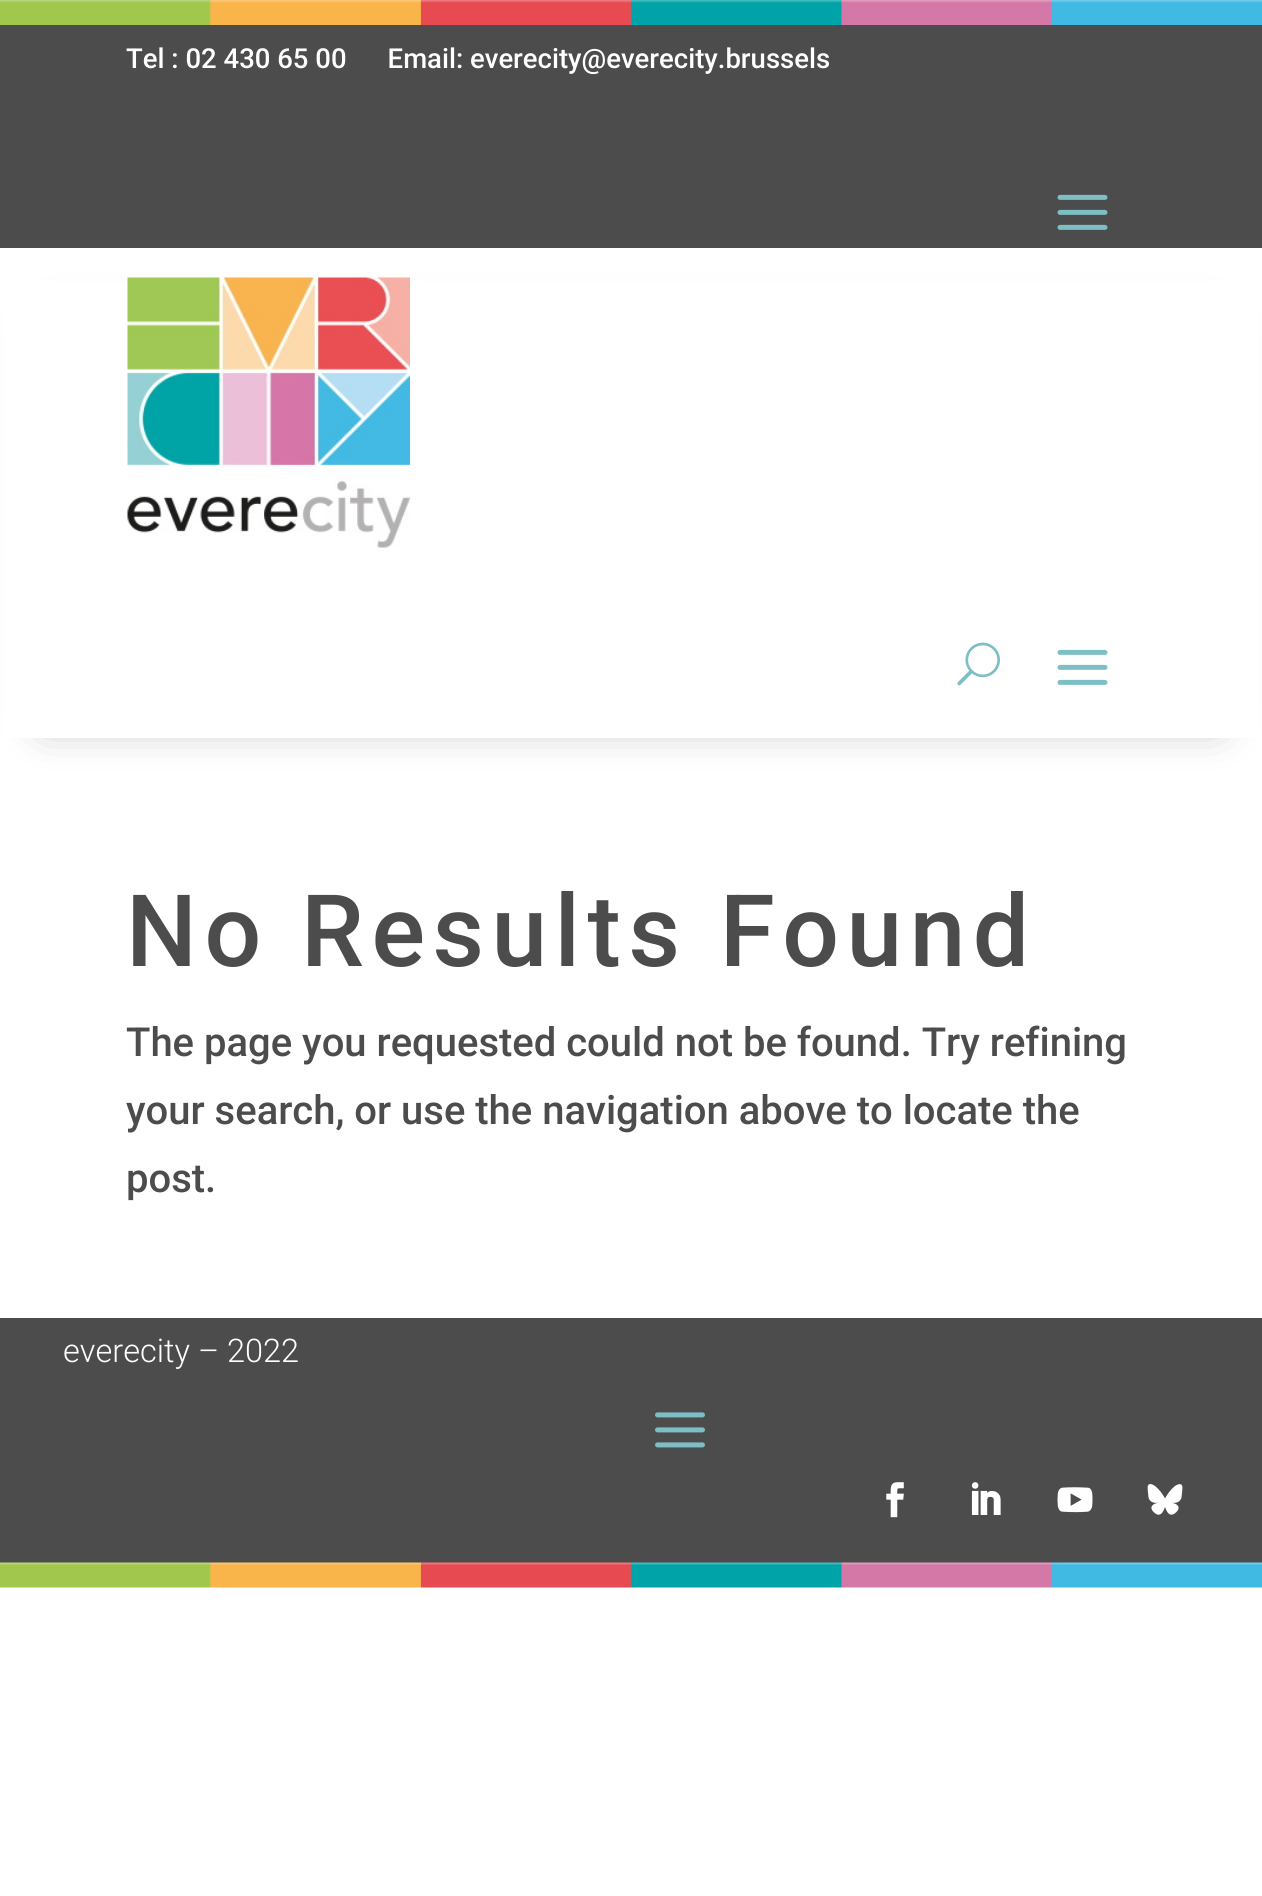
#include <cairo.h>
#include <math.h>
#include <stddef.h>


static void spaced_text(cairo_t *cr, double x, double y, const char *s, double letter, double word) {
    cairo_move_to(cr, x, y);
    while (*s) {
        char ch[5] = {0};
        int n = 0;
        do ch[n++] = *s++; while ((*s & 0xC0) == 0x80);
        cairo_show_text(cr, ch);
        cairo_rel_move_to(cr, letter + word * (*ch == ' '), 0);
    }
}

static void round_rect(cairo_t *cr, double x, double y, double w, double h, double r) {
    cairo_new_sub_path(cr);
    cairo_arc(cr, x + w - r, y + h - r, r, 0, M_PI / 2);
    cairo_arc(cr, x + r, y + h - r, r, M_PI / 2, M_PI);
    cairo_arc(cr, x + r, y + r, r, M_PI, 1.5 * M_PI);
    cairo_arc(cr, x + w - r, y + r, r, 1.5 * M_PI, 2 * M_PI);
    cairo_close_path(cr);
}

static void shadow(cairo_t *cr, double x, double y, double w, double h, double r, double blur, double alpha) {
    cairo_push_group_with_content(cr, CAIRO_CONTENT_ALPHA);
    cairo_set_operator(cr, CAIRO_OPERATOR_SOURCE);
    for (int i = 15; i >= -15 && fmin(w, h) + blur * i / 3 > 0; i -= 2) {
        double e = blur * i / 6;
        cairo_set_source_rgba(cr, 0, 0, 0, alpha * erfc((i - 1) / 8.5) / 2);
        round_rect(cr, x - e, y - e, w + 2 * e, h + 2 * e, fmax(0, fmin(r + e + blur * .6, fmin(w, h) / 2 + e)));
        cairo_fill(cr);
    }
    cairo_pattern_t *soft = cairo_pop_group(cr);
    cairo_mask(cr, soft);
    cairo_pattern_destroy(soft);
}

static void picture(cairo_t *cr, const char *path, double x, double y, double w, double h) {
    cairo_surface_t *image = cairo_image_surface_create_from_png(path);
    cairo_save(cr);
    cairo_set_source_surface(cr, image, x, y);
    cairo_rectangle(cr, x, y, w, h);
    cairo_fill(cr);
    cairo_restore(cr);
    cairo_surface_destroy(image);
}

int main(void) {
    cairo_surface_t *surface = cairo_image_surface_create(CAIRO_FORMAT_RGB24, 1262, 1896);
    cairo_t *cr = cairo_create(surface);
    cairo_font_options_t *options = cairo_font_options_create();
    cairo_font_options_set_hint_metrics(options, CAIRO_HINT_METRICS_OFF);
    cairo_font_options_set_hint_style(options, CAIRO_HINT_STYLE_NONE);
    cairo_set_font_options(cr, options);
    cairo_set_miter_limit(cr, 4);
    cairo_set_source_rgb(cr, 1, 1, 1);
    cairo_paint(cr);
    picture(cr, "img1.png", 0, 0, 1262, 25);
    cairo_set_source_rgb(cr, 0.298, 0.298, 0.298);
    cairo_rectangle(cr, 0, 25, 1262, 223);
    cairo_fill(cr);
    cairo_select_font_face(cr, "Roboto Medium", CAIRO_FONT_SLANT_NORMAL, CAIRO_FONT_WEIGHT_NORMAL);
    cairo_set_font_size(cr, 27.5);
    cairo_set_source_rgb(cr, 1, 1, 1);
    cairo_move_to(cr, 126, 68);
    cairo_show_text(cr, "Tel : 02 430 65 00      Email: everecity@everecity.brussels");
    picture(cr, "img2.png", 1057, 194, 51, 36);
    cairo_set_source_rgb(cr, 0, 0, 0);
    shadow(cr, 45, 323, 1173, 400, 0, 22.5, 0.3);
    cairo_set_source_rgb(cr, 1, 1, 1);
    cairo_rectangle(cr, 4, 282, 1255, 456);
    cairo_fill(cr);
    picture(cr, "img3.png", 127, 277, 283, 271);
    picture(cr, "img4.png", 957, 642, 43, 44);
    picture(cr, "img5.png", 1057, 649, 51, 36);
    cairo_set_font_size(cr, 100);
    cairo_set_source_rgb(cr, 0.298, 0.298, 0.298);
    spaced_text(cr, 126, 966, "No Results Found", 7.5, 0);
    cairo_set_font_size(cr, 40);
    cairo_move_to(cr, 126, 1056);
    cairo_show_text(cr, "The page you requested could not be found. Try refining");
    cairo_move_to(cr, 126, 1124);
    cairo_show_text(cr, "your search, or use the navigation above to locate the");
    cairo_move_to(cr, 126, 1192);
    cairo_show_text(cr, "post.");
    cairo_rectangle(cr, 0, 1318, 1262, 245);
    cairo_fill(cr);
    cairo_select_font_face(cr, "Roboto Light", CAIRO_FONT_SLANT_NORMAL, CAIRO_FONT_WEIGHT_NORMAL);
    cairo_set_font_size(cr, 32.5);
    cairo_set_source_rgb(cr, 1, 1, 1);
    cairo_move_to(cr, 63, 1362);
    cairo_show_text(cr, "everecity – 2022");
    picture(cr, "img6.png", 655, 1412, 50, 36);
    picture(cr, "img7.png", 886, 1482, 18, 36);
    picture(cr, "img8.png", 971, 1482, 30, 33);
    picture(cr, "img9.png", 1057, 1487, 36, 26);
    picture(cr, "img10.png", 1147, 1484, 36, 31);
    picture(cr, "img11.png", 0, 1562, 1262, 26);
    cairo_surface_write_to_png(surface, "page.png");
    cairo_font_options_destroy(options);
    cairo_destroy(cr);
    cairo_surface_destroy(surface);
    return 0;
}
